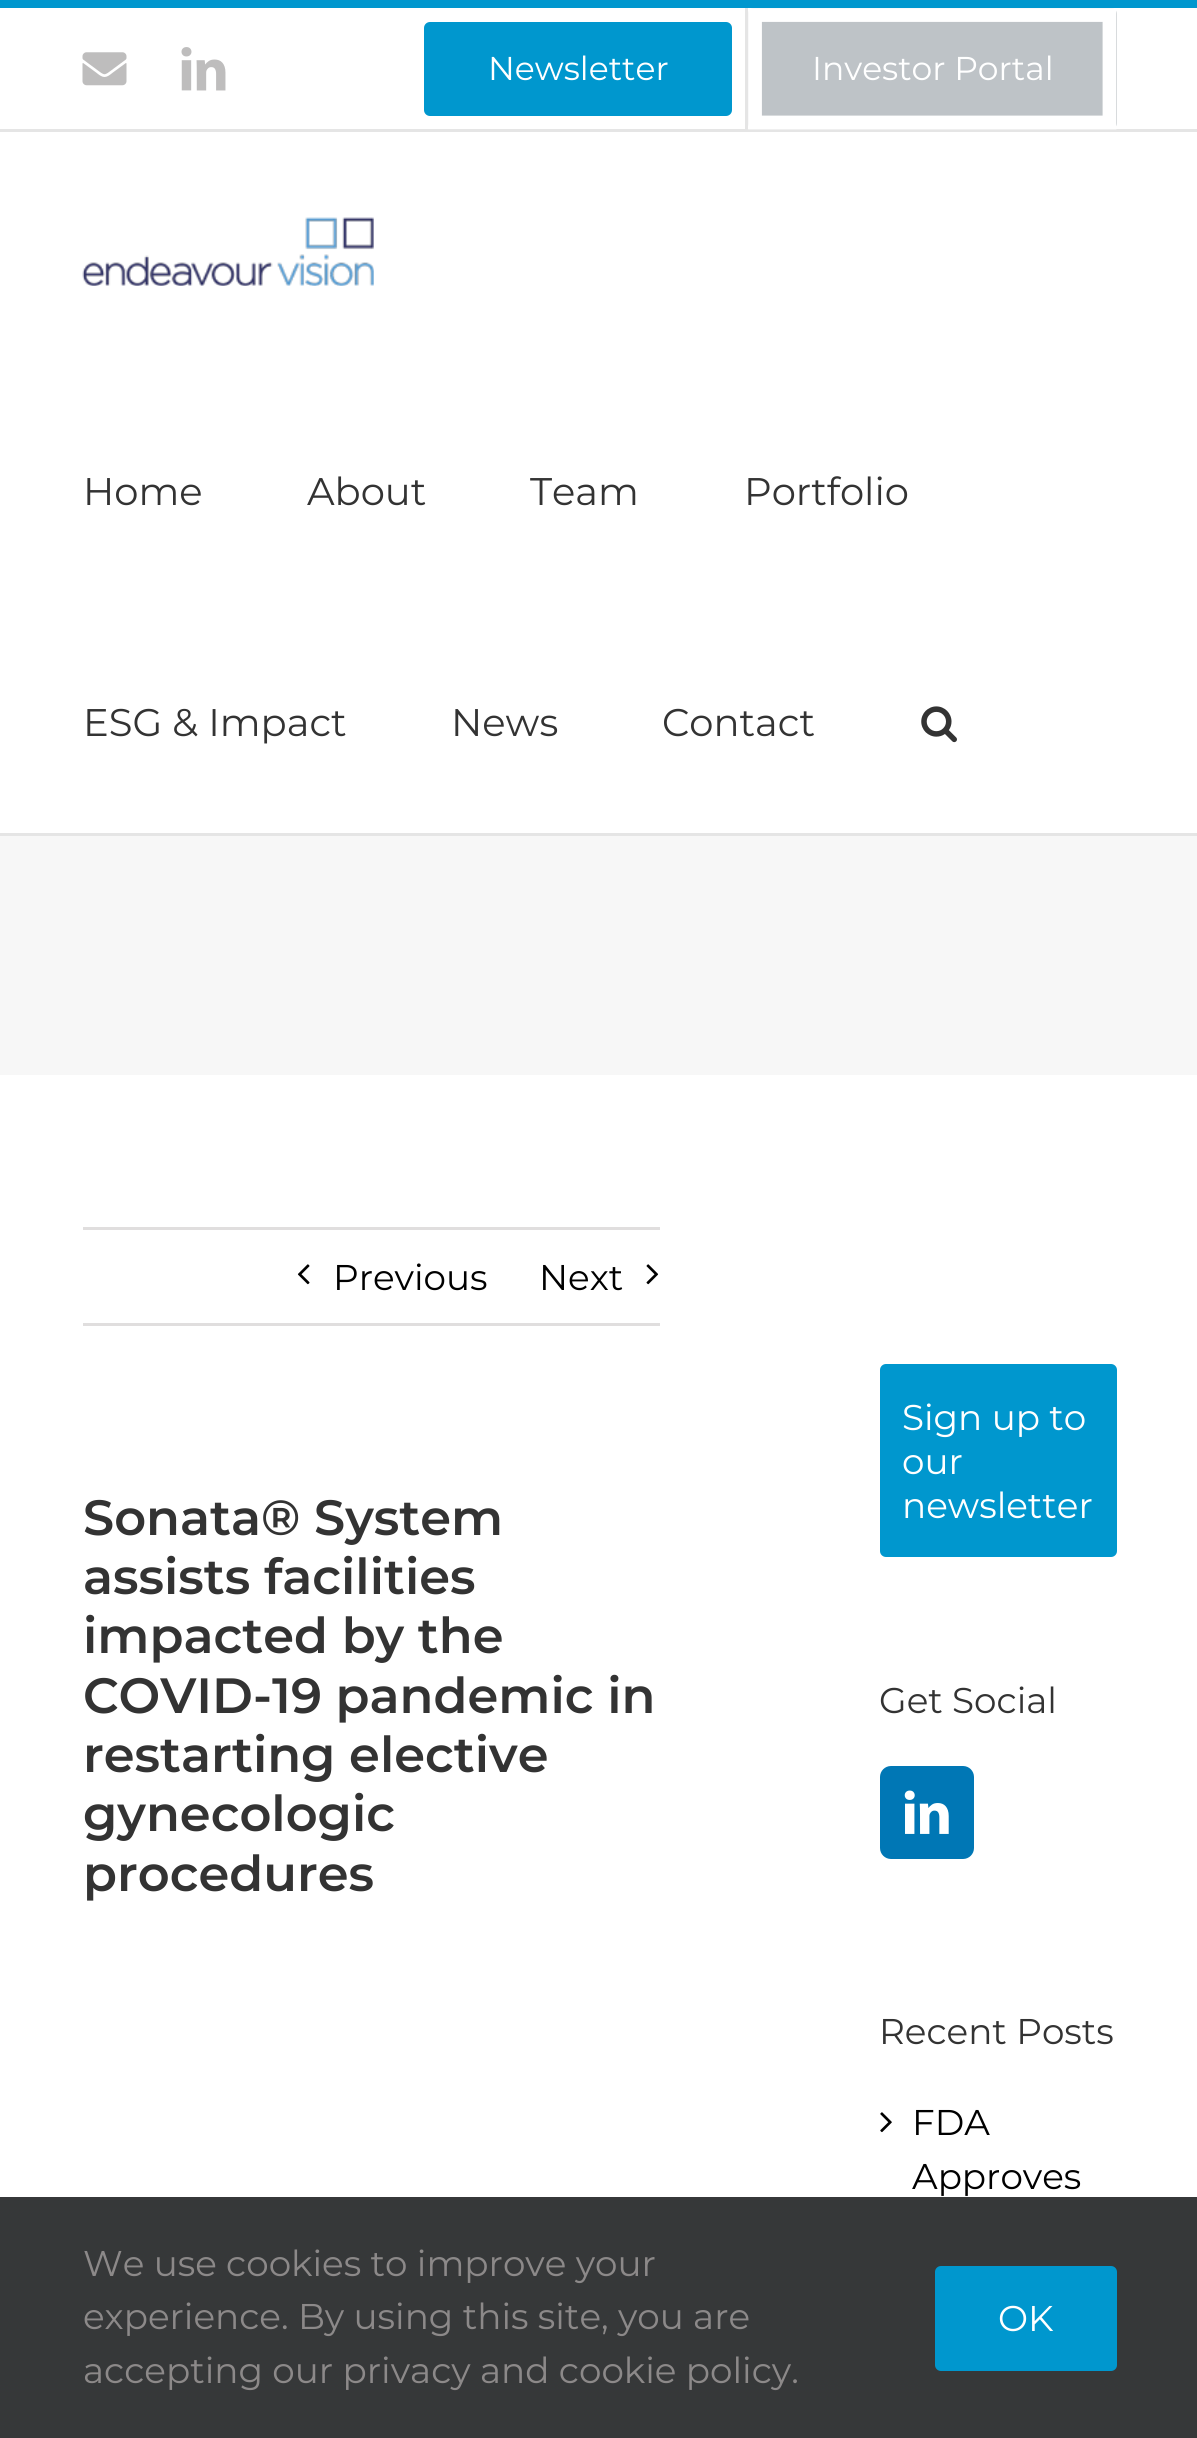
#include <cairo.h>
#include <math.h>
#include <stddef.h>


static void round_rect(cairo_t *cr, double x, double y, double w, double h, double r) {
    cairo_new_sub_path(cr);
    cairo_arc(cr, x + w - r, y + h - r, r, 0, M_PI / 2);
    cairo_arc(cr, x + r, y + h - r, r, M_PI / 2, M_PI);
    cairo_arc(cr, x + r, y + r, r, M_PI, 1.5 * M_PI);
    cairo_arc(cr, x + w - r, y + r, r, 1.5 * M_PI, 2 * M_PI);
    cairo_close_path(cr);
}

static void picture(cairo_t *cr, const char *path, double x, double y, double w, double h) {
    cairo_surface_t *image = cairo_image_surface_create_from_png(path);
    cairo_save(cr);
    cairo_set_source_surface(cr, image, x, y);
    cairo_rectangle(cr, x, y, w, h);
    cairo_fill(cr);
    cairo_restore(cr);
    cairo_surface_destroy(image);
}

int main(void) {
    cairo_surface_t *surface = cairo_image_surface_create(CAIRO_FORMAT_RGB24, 1197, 2438);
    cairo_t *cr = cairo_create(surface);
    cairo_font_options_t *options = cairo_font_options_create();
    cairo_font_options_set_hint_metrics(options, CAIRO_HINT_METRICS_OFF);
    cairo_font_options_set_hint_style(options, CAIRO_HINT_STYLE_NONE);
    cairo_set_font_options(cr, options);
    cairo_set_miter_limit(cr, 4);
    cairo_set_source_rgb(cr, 1, 1, 1);
    cairo_paint(cr);
    cairo_set_source_rgb(cr, 0, 0.592, 0.808);
    cairo_rectangle(cr, 0, 0, 1197, 8);
    cairo_fill(cr);
    cairo_set_source_rgb(cr, 0.898, 0.898, 0.898);
    cairo_rectangle(cr, 0, 129, 1197, 3);
    cairo_fill(cr);
    picture(cr, "img1.png", 82, 52, 45, 34);
    picture(cr, "img2.png", 181, 47, 45, 44);
    cairo_set_source_rgb(cr, 0, 0.592, 0.808);
    round_rect(cr, 424, 22, 308, 94, 6);
    cairo_fill(cr);
    cairo_select_font_face(cr, "Montserrat", CAIRO_FONT_SLANT_NORMAL, CAIRO_FONT_WEIGHT_NORMAL);
    cairo_set_font_size(cr, 33);
    cairo_set_source_rgb(cr, 1, 1, 1);
    cairo_move_to(cr, 488, 80);
    cairo_show_text(cr, "Newsletter");
    cairo_set_source_rgb(cr, 0.898, 0.898, 0.898);
    cairo_rectangle(cr, 745, 8, 3, 121);
    cairo_fill(cr);
    cairo_set_source_rgb(cr, 0.745, 0.765, 0.78);
    round_rect(cr, 748, 8, 369, 121, 6);
    cairo_fill(cr);
    cairo_new_path(cr);
    cairo_move_to(cr, 755, 15);
    cairo_line_to(cr, 1109.5, 15);
    cairo_line_to(cr, 1109.5, 122.5);
    cairo_line_to(cr, 755, 122.5);
    cairo_close_path(cr);
    cairo_set_source_rgb(cr, 1, 1, 1);
    cairo_set_line_width(cr, 13.8);
    cairo_stroke(cr);
    cairo_move_to(cr, 812, 80);
    cairo_show_text(cr, "Investor Portal");
    cairo_set_source_rgb(cr, 0.898, 0.898, 0.898);
    cairo_rectangle(cr, 0, 833, 1197, 3);
    cairo_fill(cr);
    picture(cr, "img3.png", 82, 217, 292, 69);
    cairo_set_font_size(cr, 38.5);
    cairo_set_source_rgb(cr, 0.2, 0.2, 0.2);
    cairo_move_to(cr, 83, 505);
    cairo_show_text(cr, "Home");
    cairo_move_to(cr, 307, 505);
    cairo_show_text(cr, "About");
    cairo_move_to(cr, 530, 505);
    cairo_show_text(cr, "Team");
    cairo_move_to(cr, 744, 505);
    cairo_show_text(cr, "Portfolio");
    cairo_move_to(cr, 83, 736);
    cairo_show_text(cr, "ESG & Impact");
    cairo_move_to(cr, 451, 736);
    cairo_show_text(cr, "News");
    cairo_move_to(cr, 662, 736);
    cairo_show_text(cr, "Contact");
    picture(cr, "img4.png", 921, 706, 36, 37);
    cairo_set_source_rgb(cr, 0.965, 0.965, 0.965);
    cairo_rectangle(cr, 0, 836, 1197, 239);
    cairo_fill(cr);
    cairo_set_source_rgb(cr, 0.878, 0.871, 0.871);
    cairo_rectangle(cr, 83, 1227, 577, 3);
    cairo_fill(cr);
    cairo_rectangle(cr, 83, 1323, 577, 3);
    cairo_fill(cr);
    picture(cr, "img5.png", 297, 1264, 13, 21);
    cairo_set_font_size(cr, 35.75);
    cairo_set_source_rgb(cr, 0, 0, 0);
    cairo_move_to(cr, 333, 1290);
    cairo_show_text(cr, "Previous");
    cairo_move_to(cr, 539, 1290);
    cairo_show_text(cr, "Next");
    picture(cr, "img6.png", 646, 1264, 13, 21);
    cairo_select_font_face(cr, "Montserrat SemiBold", CAIRO_FONT_SLANT_NORMAL, CAIRO_FONT_WEIGHT_NORMAL);
    cairo_set_font_size(cr, 49.5);
    cairo_set_source_rgb(cr, 0.2, 0.2, 0.2);
    cairo_move_to(cr, 83, 1535);
    cairo_show_text(cr, "Sonata® System");
    cairo_move_to(cr, 83, 1594);
    cairo_show_text(cr, "assists facilities");
    cairo_move_to(cr, 83, 1653);
    cairo_show_text(cr, "impacted by the");
    cairo_move_to(cr, 83, 1713);
    cairo_show_text(cr, "COVID-19 pandemic in");
    cairo_move_to(cr, 83, 1772);
    cairo_show_text(cr, "restarting elective");
    cairo_move_to(cr, 83, 1831);
    cairo_show_text(cr, "gynecologic");
    cairo_move_to(cr, 83, 1891);
    cairo_show_text(cr, "procedures");
    cairo_set_source_rgb(cr, 0, 0.592, 0.808);
    round_rect(cr, 880, 1364, 237, 193, 6);
    cairo_fill(cr);
    cairo_select_font_face(cr, "Montserrat", CAIRO_FONT_SLANT_NORMAL, CAIRO_FONT_WEIGHT_NORMAL);
    cairo_set_font_size(cr, 35.75);
    cairo_set_source_rgb(cr, 1, 1, 1);
    cairo_move_to(cr, 902, 1430);
    cairo_show_text(cr, "Sign up to");
    cairo_move_to(cr, 902, 1474);
    cairo_show_text(cr, "our");
    cairo_move_to(cr, 902, 1518);
    cairo_show_text(cr, "newsletter");
    cairo_set_source_rgb(cr, 0.2, 0.2, 0.2);
    cairo_move_to(cr, 879, 1713);
    cairo_show_text(cr, "Get Social");
    cairo_set_source_rgb(cr, 0, 0.467, 0.71);
    round_rect(cr, 881.5, 1767.5, 91, 90, 9.5);
    cairo_fill_preserve(cr);
    cairo_set_line_width(cr, 3);
    cairo_stroke(cr);
    picture(cr, "img7.png", 904, 1790, 45, 44);
    cairo_set_source_rgb(cr, 0.2, 0.2, 0.2);
    cairo_move_to(cr, 879, 2044);
    cairo_show_text(cr, "Recent Posts");
    picture(cr, "img8.png", 880, 2112, 12, 21);
    cairo_set_source_rgb(cr, 0, 0, 0);
    cairo_move_to(cr, 912, 2135);
    cairo_show_text(cr, "FDA");
    cairo_move_to(cr, 912, 2189);
    cairo_show_text(cr, "Approves");
    cairo_set_source_rgb(cr, 0.212, 0.22, 0.224);
    cairo_rectangle(cr, 0, 2197, 1197, 241);
    cairo_fill(cr);
    cairo_set_source_rgb(cr, 0.549, 0.537, 0.537);
    cairo_move_to(cr, 83, 2276);
    cairo_show_text(cr, "We use cookies to improve your");
    cairo_move_to(cr, 83, 2329);
    cairo_show_text(cr, "experience. By using this site, you are");
    cairo_move_to(cr, 83, 2383);
    cairo_show_text(cr, "accepting our privacy and cookie policy.");
    cairo_set_source_rgb(cr, 0, 0.592, 0.808);
    round_rect(cr, 935, 2266, 182, 105, 6);
    cairo_fill(cr);
    cairo_set_source_rgb(cr, 1, 1, 1);
    cairo_move_to(cr, 998, 2331);
    cairo_show_text(cr, "OK");
    cairo_surface_write_to_png(surface, "page.png");
    cairo_font_options_destroy(options);
    cairo_destroy(cr);
    cairo_surface_destroy(surface);
    return 0;
}
